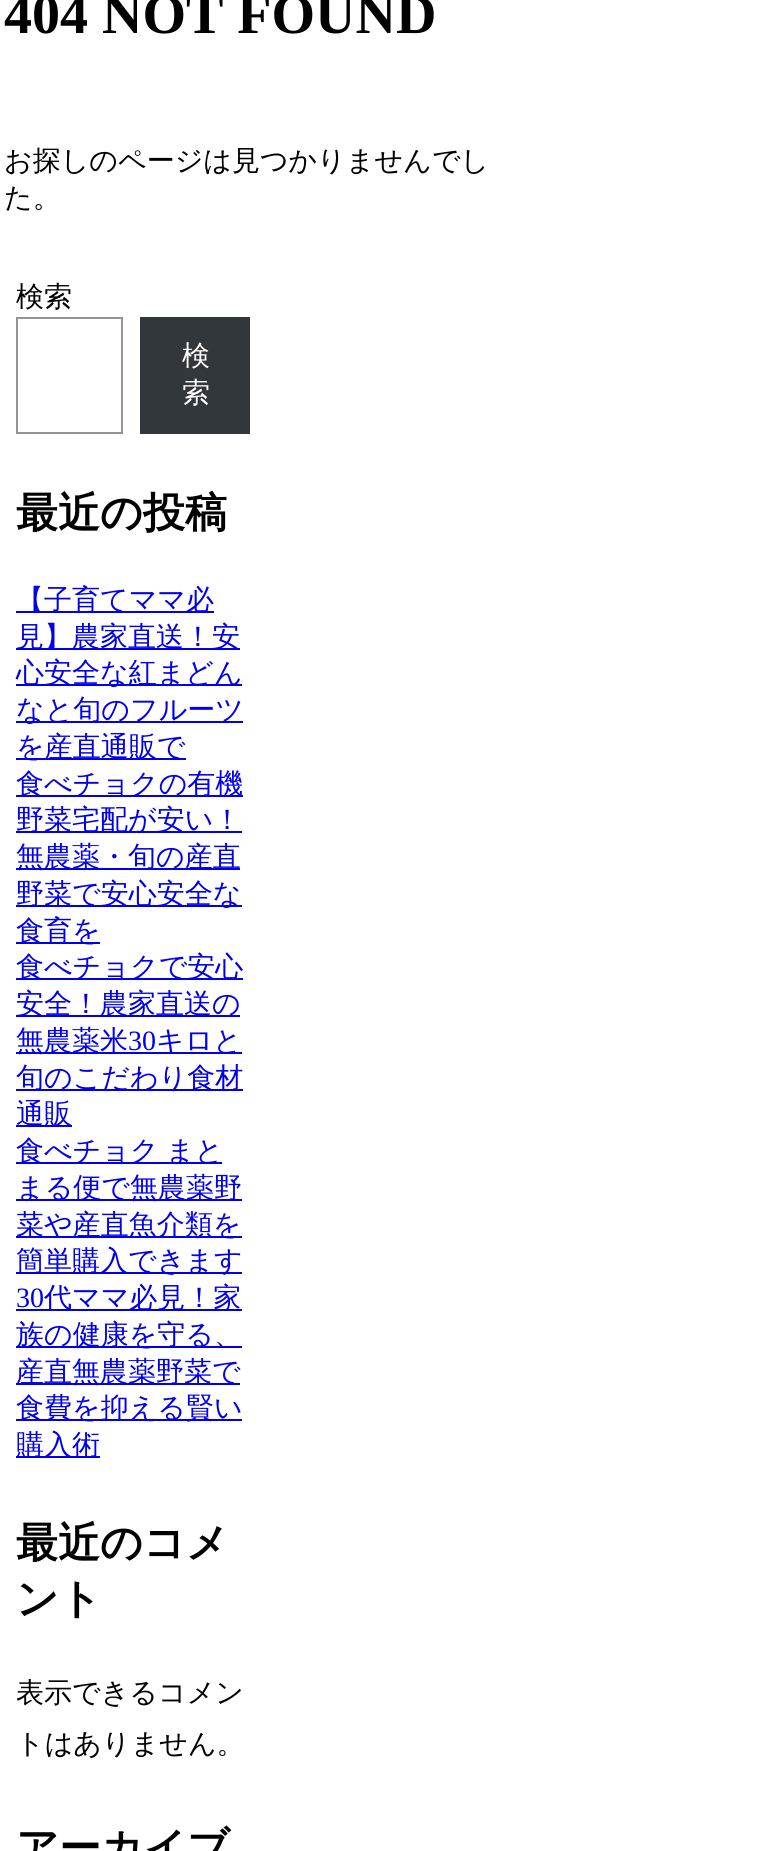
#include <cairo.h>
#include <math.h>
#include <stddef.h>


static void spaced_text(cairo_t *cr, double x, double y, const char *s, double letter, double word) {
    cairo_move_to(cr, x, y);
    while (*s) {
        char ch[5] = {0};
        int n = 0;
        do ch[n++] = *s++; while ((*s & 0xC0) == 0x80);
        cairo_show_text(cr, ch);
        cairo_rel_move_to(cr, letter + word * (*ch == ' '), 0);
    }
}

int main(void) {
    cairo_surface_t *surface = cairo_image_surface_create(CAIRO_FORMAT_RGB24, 782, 1851);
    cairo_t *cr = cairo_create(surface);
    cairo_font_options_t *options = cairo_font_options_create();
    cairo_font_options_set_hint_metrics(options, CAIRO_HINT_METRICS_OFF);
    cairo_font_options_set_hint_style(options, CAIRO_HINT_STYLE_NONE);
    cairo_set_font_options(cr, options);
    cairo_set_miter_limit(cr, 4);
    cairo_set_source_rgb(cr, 1, 1, 1);
    cairo_paint(cr);
    cairo_select_font_face(cr, "Liberation Serif", CAIRO_FONT_SLANT_NORMAL, CAIRO_FONT_WEIGHT_BOLD);
    cairo_set_font_size(cr, 56);
    cairo_set_source_rgb(cr, 0, 0, 0);
    cairo_move_to(cr, 4, 33);
    cairo_show_text(cr, "404 NOT FOUND");
    cairo_select_font_face(cr, "WenQuanYi Zen Hei Medium", CAIRO_FONT_SLANT_NORMAL, CAIRO_FONT_WEIGHT_NORMAL);
    cairo_set_font_size(cr, 28);
    cairo_move_to(cr, 4, 170);
    cairo_show_text(cr, "お探しのページは見つかりませんでし");
    cairo_move_to(cr, 4, 207);
    cairo_show_text(cr, "た。");
    cairo_move_to(cr, 16, 306);
    cairo_show_text(cr, "検索");
    cairo_rectangle(cr, 17, 318, 105, 115);
    cairo_set_source_rgb(cr, 0.58, 0.58, 0.58);
    cairo_stroke(cr);
    cairo_set_source_rgb(cr, 0.196, 0.216, 0.235);
    cairo_rectangle(cr, 140, 317, 110, 117);
    cairo_fill(cr);
    cairo_set_source_rgb(cr, 1, 1, 1);
    cairo_move_to(cr, 182, 365);
    cairo_show_text(cr, "検");
    cairo_move_to(cr, 182, 402);
    cairo_show_text(cr, "索");
    cairo_select_font_face(cr, "WenQuanYi Zen Hei", CAIRO_FONT_SLANT_NORMAL, CAIRO_FONT_WEIGHT_BOLD);
    cairo_set_font_size(cr, 42);
    cairo_set_source_rgb(cr, 0, 0, 0);
    cairo_move_to(cr, 16, 527);
    cairo_show_text(cr, "最近の投稿");
    cairo_set_source_rgb(cr, 0, 0, 0.933);
    cairo_rectangle(cr, 16, 611, 198, 2);
    cairo_fill(cr);
    cairo_select_font_face(cr, "WenQuanYi Zen Hei Medium", CAIRO_FONT_SLANT_NORMAL, CAIRO_FONT_WEIGHT_NORMAL);
    cairo_set_font_size(cr, 28);
    cairo_move_to(cr, 16, 609);
    cairo_show_text(cr, "【子育てママ必");
    cairo_rectangle(cr, 16, 648, 224, 2);
    cairo_fill(cr);
    cairo_move_to(cr, 16, 646);
    cairo_show_text(cr, "見】農家直送！安");
    cairo_rectangle(cr, 16, 684, 226, 2);
    cairo_fill(cr);
    cairo_move_to(cr, 16, 682);
    cairo_show_text(cr, "心安全な紅まどん");
    cairo_rectangle(cr, 16, 721, 227, 2);
    cairo_fill(cr);
    cairo_move_to(cr, 16, 719);
    cairo_show_text(cr, "なと旬のフルーツ");
    cairo_rectangle(cr, 16, 758, 170, 2);
    cairo_fill(cr);
    cairo_move_to(cr, 16, 756);
    cairo_show_text(cr, "を産直通販で");
    cairo_rectangle(cr, 16, 795, 227, 2);
    cairo_fill(cr);
    cairo_move_to(cr, 16, 793);
    cairo_show_text(cr, "食べチョクの有機");
    cairo_rectangle(cr, 16, 831, 226, 2);
    cairo_fill(cr);
    cairo_move_to(cr, 16, 829);
    cairo_show_text(cr, "野菜宅配が安い！");
    cairo_rectangle(cr, 16, 868, 224, 2);
    cairo_fill(cr);
    cairo_move_to(cr, 16, 866);
    cairo_show_text(cr, "無農薬・旬の産直");
    cairo_rectangle(cr, 16, 905, 226, 2);
    cairo_fill(cr);
    cairo_move_to(cr, 16, 903);
    cairo_show_text(cr, "野菜で安心安全な");
    cairo_rectangle(cr, 16, 942, 84, 2);
    cairo_fill(cr);
    cairo_move_to(cr, 16, 940);
    cairo_show_text(cr, "食育を");
    cairo_rectangle(cr, 16, 978, 227, 2);
    cairo_fill(cr);
    cairo_move_to(cr, 16, 976);
    cairo_show_text(cr, "食べチョクで安心");
    cairo_rectangle(cr, 16, 1015, 224, 2);
    cairo_fill(cr);
    cairo_move_to(cr, 16, 1013);
    cairo_show_text(cr, "安全！農家直送の");
    cairo_rectangle(cr, 16, 1052, 226, 2);
    cairo_fill(cr);
    cairo_move_to(cr, 16, 1050);
    cairo_show_text(cr, "無農薬米");
    cairo_select_font_face(cr, "Liberation Serif", CAIRO_FONT_SLANT_NORMAL, CAIRO_FONT_WEIGHT_NORMAL);
    cairo_move_to(cr, 128, 1050);
    cairo_show_text(cr, "30");
    cairo_select_font_face(cr, "WenQuanYi Zen Hei Medium", CAIRO_FONT_SLANT_NORMAL, CAIRO_FONT_WEIGHT_NORMAL);
    cairo_move_to(cr, 156, 1050);
    cairo_show_text(cr, "キロと");
    cairo_rectangle(cr, 16, 1089, 227, 2);
    cairo_fill(cr);
    cairo_move_to(cr, 16, 1087);
    cairo_show_text(cr, "旬のこだわり食材");
    cairo_rectangle(cr, 16, 1125, 56, 2);
    cairo_fill(cr);
    cairo_move_to(cr, 16, 1123);
    cairo_show_text(cr, "通販");
    cairo_rectangle(cr, 16, 1162, 206, 2);
    cairo_fill(cr);
    spaced_text(cr, 16, 1160, "食べチョク まと", 0, -1);
    cairo_rectangle(cr, 16, 1199, 226, 2);
    cairo_fill(cr);
    cairo_move_to(cr, 16, 1197);
    cairo_show_text(cr, "まる便で無農薬野");
    cairo_rectangle(cr, 16, 1236, 226, 2);
    cairo_fill(cr);
    cairo_move_to(cr, 16, 1234);
    cairo_show_text(cr, "菜や産直魚介類を");
    cairo_rectangle(cr, 16, 1272, 226, 2);
    cairo_fill(cr);
    cairo_move_to(cr, 16, 1270);
    cairo_show_text(cr, "簡単購入できます");
    cairo_select_font_face(cr, "Liberation Serif", CAIRO_FONT_SLANT_NORMAL, CAIRO_FONT_WEIGHT_NORMAL);
    cairo_move_to(cr, 16, 1307);
    cairo_show_text(cr, "30");
    cairo_rectangle(cr, 16, 1309, 226, 2);
    cairo_fill(cr);
    cairo_select_font_face(cr, "WenQuanYi Zen Hei Medium", CAIRO_FONT_SLANT_NORMAL, CAIRO_FONT_WEIGHT_NORMAL);
    cairo_move_to(cr, 44, 1307);
    cairo_show_text(cr, "代ママ必見！家");
    cairo_rectangle(cr, 16, 1346, 226, 2);
    cairo_fill(cr);
    cairo_move_to(cr, 16, 1344);
    cairo_show_text(cr, "族の健康を守る、");
    cairo_rectangle(cr, 16, 1383, 224, 2);
    cairo_fill(cr);
    cairo_move_to(cr, 16, 1381);
    cairo_show_text(cr, "産直無農薬野菜で");
    cairo_rectangle(cr, 16, 1419, 226, 2);
    cairo_fill(cr);
    cairo_move_to(cr, 16, 1417);
    cairo_show_text(cr, "食費を抑える賢い");
    cairo_rectangle(cr, 16, 1456, 84, 2);
    cairo_fill(cr);
    cairo_move_to(cr, 16, 1454);
    cairo_show_text(cr, "購入術");
    cairo_select_font_face(cr, "WenQuanYi Zen Hei", CAIRO_FONT_SLANT_NORMAL, CAIRO_FONT_WEIGHT_BOLD);
    cairo_set_font_size(cr, 42);
    cairo_set_source_rgb(cr, 0, 0, 0);
    cairo_move_to(cr, 16, 1557);
    cairo_show_text(cr, "最近のコメ");
    cairo_move_to(cr, 16, 1613);
    cairo_show_text(cr, "ント");
    cairo_select_font_face(cr, "WenQuanYi Zen Hei Medium", CAIRO_FONT_SLANT_NORMAL, CAIRO_FONT_WEIGHT_NORMAL);
    cairo_set_font_size(cr, 28);
    cairo_move_to(cr, 16, 1702);
    cairo_show_text(cr, "表示できるコメン");
    cairo_move_to(cr, 16, 1753);
    cairo_show_text(cr, "トはありません。");
    cairo_select_font_face(cr, "WenQuanYi Zen Hei", CAIRO_FONT_SLANT_NORMAL, CAIRO_FONT_WEIGHT_BOLD);
    cairo_set_font_size(cr, 42);
    cairo_move_to(cr, 16, 1862);
    cairo_show_text(cr, "アーカイブ");
    cairo_surface_write_to_png(surface, "page.png");
    cairo_font_options_destroy(options);
    cairo_destroy(cr);
    cairo_surface_destroy(surface);
    return 0;
}
